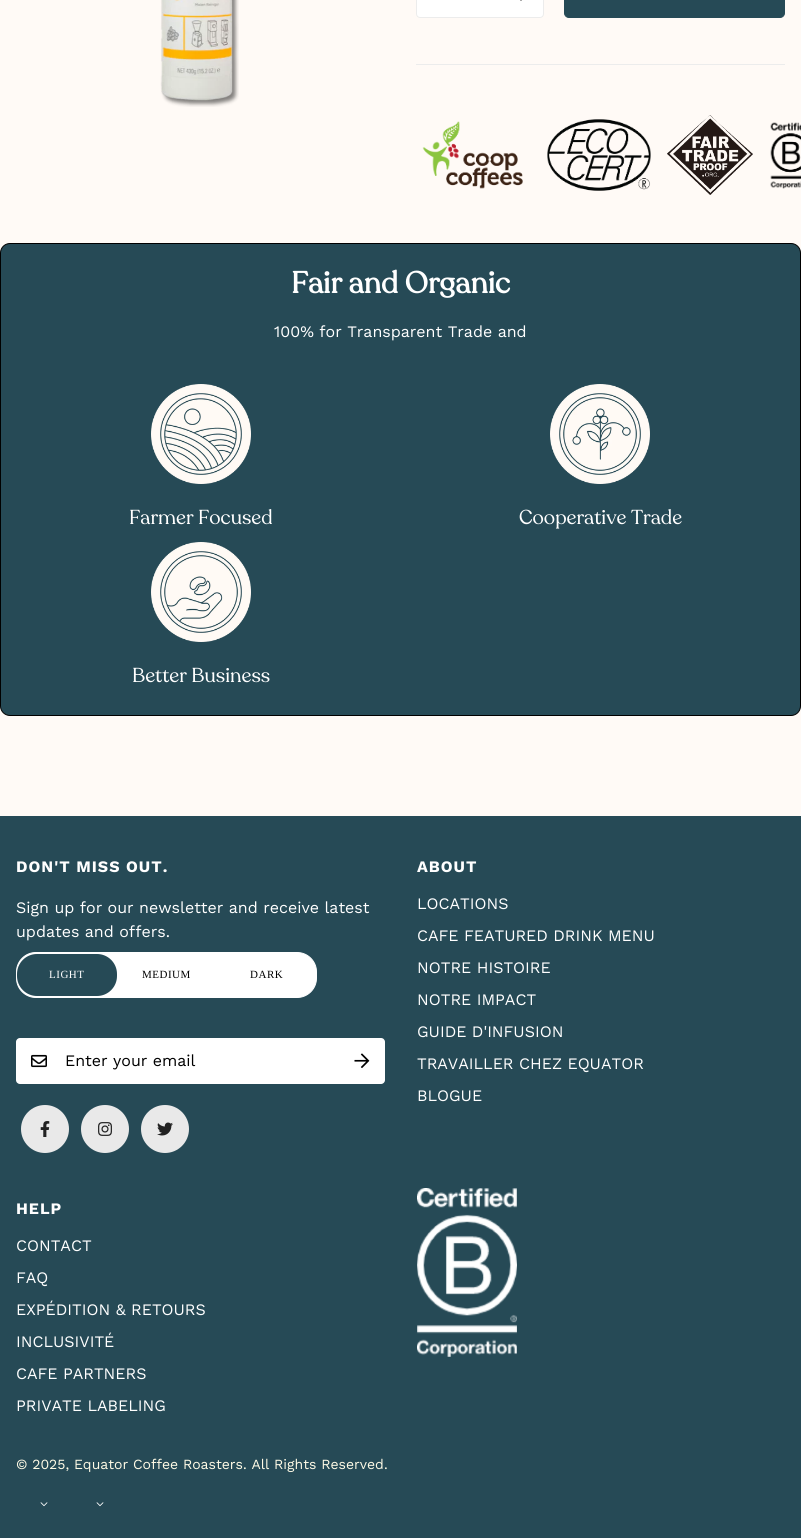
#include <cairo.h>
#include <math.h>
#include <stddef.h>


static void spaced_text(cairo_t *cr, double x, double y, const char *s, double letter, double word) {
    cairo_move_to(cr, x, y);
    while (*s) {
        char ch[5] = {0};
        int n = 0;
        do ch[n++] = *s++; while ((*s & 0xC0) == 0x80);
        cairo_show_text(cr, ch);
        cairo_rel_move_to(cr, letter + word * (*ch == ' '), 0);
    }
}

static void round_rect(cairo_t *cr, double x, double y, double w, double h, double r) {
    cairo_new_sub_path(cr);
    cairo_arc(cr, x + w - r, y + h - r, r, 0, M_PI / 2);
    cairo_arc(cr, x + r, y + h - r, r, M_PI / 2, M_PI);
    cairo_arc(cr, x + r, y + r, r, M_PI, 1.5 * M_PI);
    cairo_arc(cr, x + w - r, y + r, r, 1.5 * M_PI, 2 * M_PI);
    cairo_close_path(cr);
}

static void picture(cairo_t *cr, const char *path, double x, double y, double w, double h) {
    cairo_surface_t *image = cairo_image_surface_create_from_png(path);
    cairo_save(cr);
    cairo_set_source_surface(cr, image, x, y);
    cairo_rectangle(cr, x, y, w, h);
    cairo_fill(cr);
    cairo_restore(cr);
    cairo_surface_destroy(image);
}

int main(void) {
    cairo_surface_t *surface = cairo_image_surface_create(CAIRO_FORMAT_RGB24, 801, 1538);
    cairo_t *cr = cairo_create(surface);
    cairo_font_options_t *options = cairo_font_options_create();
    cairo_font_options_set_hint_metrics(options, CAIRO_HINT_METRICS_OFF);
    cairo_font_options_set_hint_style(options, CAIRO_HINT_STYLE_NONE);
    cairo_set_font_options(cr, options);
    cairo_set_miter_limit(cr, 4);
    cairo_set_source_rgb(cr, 1, 0.98, 0.961);
    cairo_paint(cr);
    picture(cr, "img1.png", 160, 0, 79, 107);
    cairo_set_source_rgb(cr, 1, 1, 1);
    round_rect(cr, 416.5, -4.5, 127, 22, 3.5);
    cairo_fill_preserve(cr);
    cairo_set_source_rgb(cr, 0.922, 0.922, 0.922);
    cairo_set_line_width(cr, 1);
    cairo_stroke(cr);
    cairo_set_source_rgb(cr, 0.671, 0.671, 0.671);
    cairo_rectangle(cr, 520, 0, 2, 1);
    cairo_fill(cr);
    cairo_set_source_rgb(cr, 0.149, 0.29, 0.337);
    round_rect(cr, 564.5, -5.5, 220, 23, 4.5);
    cairo_fill_preserve(cr);
    cairo_stroke(cr);
    cairo_set_source_rgb(cr, 0.922, 0.922, 0.922);
    cairo_rectangle(cr, 416, 64, 369, 1);
    cairo_fill(cr);
    picture(cr, "img2.png", 422, 121, 101, 68);
    picture(cr, "img3.png", 547, 119, 104, 72);
    picture(cr, "img4.png", 667, 115, 86, 80);
    picture(cr, "img5.png", 770, 122, 31, 67);
    cairo_set_source_rgb(cr, 0.149, 0.29, 0.337);
    round_rect(cr, 0.5, 243.5, 800, 472, 9.5);
    cairo_fill_preserve(cr);
    cairo_set_source_rgb(cr, 0, 0, 0);
    cairo_stroke(cr);
    cairo_select_font_face(cr, "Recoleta", CAIRO_FONT_SLANT_NORMAL, CAIRO_FONT_WEIGHT_BOLD);
    cairo_set_font_size(cr, 30);
    cairo_set_source_rgb(cr, 1, 1, 1);
    cairo_move_to(cr, 291, 293);
    cairo_show_text(cr, "Fair and Organic");
    cairo_select_font_face(cr, "Work Sans", CAIRO_FONT_SLANT_NORMAL, CAIRO_FONT_WEIGHT_NORMAL);
    cairo_set_font_size(cr, 16);
    cairo_move_to(cr, 274, 337);
    cairo_show_text(cr, "100% for Transparent Trade and");
    picture(cr, "img6.png", 151, 384, 100, 100);
    cairo_select_font_face(cr, "Recoleta", CAIRO_FONT_SLANT_NORMAL, CAIRO_FONT_WEIGHT_NORMAL);
    cairo_set_font_size(cr, 20);
    cairo_move_to(cr, 129, 524);
    cairo_show_text(cr, "Farmer Focused");
    picture(cr, "img7.png", 550, 384, 100, 100);
    cairo_move_to(cr, 519, 524);
    cairo_show_text(cr, "Cooperative Trade");
    picture(cr, "img8.png", 151, 542, 100, 100);
    cairo_move_to(cr, 132, 682);
    cairo_show_text(cr, "Better Business");
    cairo_set_source_rgb(cr, 0.149, 0.29, 0.337);
    cairo_rectangle(cr, 0, 816, 801, 722);
    cairo_fill(cr);
    cairo_select_font_face(cr, "Work Sans", CAIRO_FONT_SLANT_NORMAL, CAIRO_FONT_WEIGHT_BOLD);
    cairo_set_font_size(cr, 16);
    cairo_set_source_rgb(cr, 1, 1, 1);
    spaced_text(cr, 16, 872, "DON'T MISS OUT.", 1, 0);
    cairo_select_font_face(cr, "Work Sans", CAIRO_FONT_SLANT_NORMAL, CAIRO_FONT_WEIGHT_NORMAL);
    cairo_move_to(cr, 16, 913);
    cairo_show_text(cr, "Sign up for our newsletter and receive latest");
    cairo_move_to(cr, 16, 937);
    cairo_show_text(cr, "updates and offers.");
    round_rect(cr, 16.5, 952.5, 300, 45, 19.5);
    cairo_fill_preserve(cr);
    cairo_stroke(cr);
    cairo_set_source_rgb(cr, 0.149, 0.29, 0.337);
    round_rect(cr, 17, 954, 100, 42, 20);
    cairo_fill(cr);
    cairo_select_font_face(cr, "Liberation Serif", CAIRO_FONT_SLANT_NORMAL, CAIRO_FONT_WEIGHT_NORMAL);
    cairo_set_font_size(cr, 11);
    cairo_set_source_rgb(cr, 1, 1, 1);
    spaced_text(cr, 49, 978, "LIGHT", 0.5, 0);
    cairo_set_source_rgb(cr, 0, 0, 0);
    spaced_text(cr, 142, 978, "MEDIUM", 0.5, 0);
    spaced_text(cr, 250, 978, "DARK", 0.5, 0);
    cairo_set_source_rgb(cr, 1, 1, 1);
    round_rect(cr, 16, 1038, 369, 46, 4);
    cairo_fill(cr);
    picture(cr, "img9.png", 31, 1054, 16, 14);
    cairo_select_font_face(cr, "Work Sans", CAIRO_FONT_SLANT_NORMAL, CAIRO_FONT_WEIGHT_NORMAL);
    cairo_set_font_size(cr, 16);
    cairo_set_source_rgb(cr, 0, 0, 0);
    cairo_move_to(cr, 65, 1066);
    cairo_show_text(cr, "Enter your email");
    picture(cr, "img10.png", 354, 1053, 16, 15);
    cairo_set_source_rgb(cr, 0.914, 0.914, 0.914);
    cairo_arc(cr, 45, 1129, 24, 0, 2 * M_PI);
    cairo_fill(cr);
    picture(cr, "img11.png", 40, 1121, 10, 16);
    cairo_arc(cr, 105, 1129, 24, 0, 2 * M_PI);
    cairo_fill(cr);
    picture(cr, "img12.png", 98, 1122, 14, 14);
    cairo_arc(cr, 165, 1129, 24, 0, 2 * M_PI);
    cairo_fill(cr);
    picture(cr, "img13.png", 157, 1122, 16, 14);
    cairo_select_font_face(cr, "Work Sans", CAIRO_FONT_SLANT_NORMAL, CAIRO_FONT_WEIGHT_BOLD);
    cairo_set_source_rgb(cr, 1, 1, 1);
    spaced_text(cr, 417, 872, "ABOUT", 1, 0);
    cairo_select_font_face(cr, "Work Sans", CAIRO_FONT_SLANT_NORMAL, CAIRO_FONT_WEIGHT_NORMAL);
    cairo_move_to(cr, 417, 909);
    cairo_show_text(cr, "LOCATIONS");
    cairo_move_to(cr, 417, 941);
    cairo_show_text(cr, "CAFE FEATURED DRINK MENU");
    cairo_move_to(cr, 417, 973);
    cairo_show_text(cr, "NOTRE HISTOIRE");
    cairo_move_to(cr, 417, 1005);
    cairo_show_text(cr, "NOTRE IMPACT");
    cairo_move_to(cr, 417, 1037);
    cairo_show_text(cr, "GUIDE D'INFUSION");
    cairo_move_to(cr, 417, 1069);
    cairo_show_text(cr, "TRAVAILLER CHEZ EQUATOR");
    cairo_move_to(cr, 417, 1101);
    cairo_show_text(cr, "BLOGUE");
    cairo_select_font_face(cr, "Work Sans", CAIRO_FONT_SLANT_NORMAL, CAIRO_FONT_WEIGHT_BOLD);
    spaced_text(cr, 16, 1214, "HELP", 1, 0);
    cairo_select_font_face(cr, "Work Sans", CAIRO_FONT_SLANT_NORMAL, CAIRO_FONT_WEIGHT_NORMAL);
    cairo_move_to(cr, 16, 1251);
    cairo_show_text(cr, "CONTACT");
    cairo_move_to(cr, 16, 1283);
    cairo_show_text(cr, "FAQ");
    cairo_move_to(cr, 16, 1315);
    cairo_show_text(cr, "EXPÉDITION & RETOURS");
    cairo_move_to(cr, 16, 1347);
    cairo_show_text(cr, "INCLUSIVITÉ");
    cairo_move_to(cr, 16, 1379);
    cairo_show_text(cr, "CAFE PARTNERS");
    cairo_move_to(cr, 16, 1411);
    cairo_show_text(cr, "PRIVATE LABELING");
    picture(cr, "img14.png", 417, 1188, 100, 169);
    cairo_set_font_size(cr, 14);
    cairo_set_source_rgb(cr, 1, 0.984, 0.902);
    cairo_move_to(cr, 16, 1469);
    cairo_show_text(cr, "© 2025, Equator Coffee Roasters. All Rights Reserved.");
    picture(cr, "img15.png", 40, 1502, 8, 5);
    picture(cr, "img15.png", 96, 1502, 8, 5);
    cairo_surface_write_to_png(surface, "page.png");
    cairo_font_options_destroy(options);
    cairo_destroy(cr);
    cairo_surface_destroy(surface);
    return 0;
}
